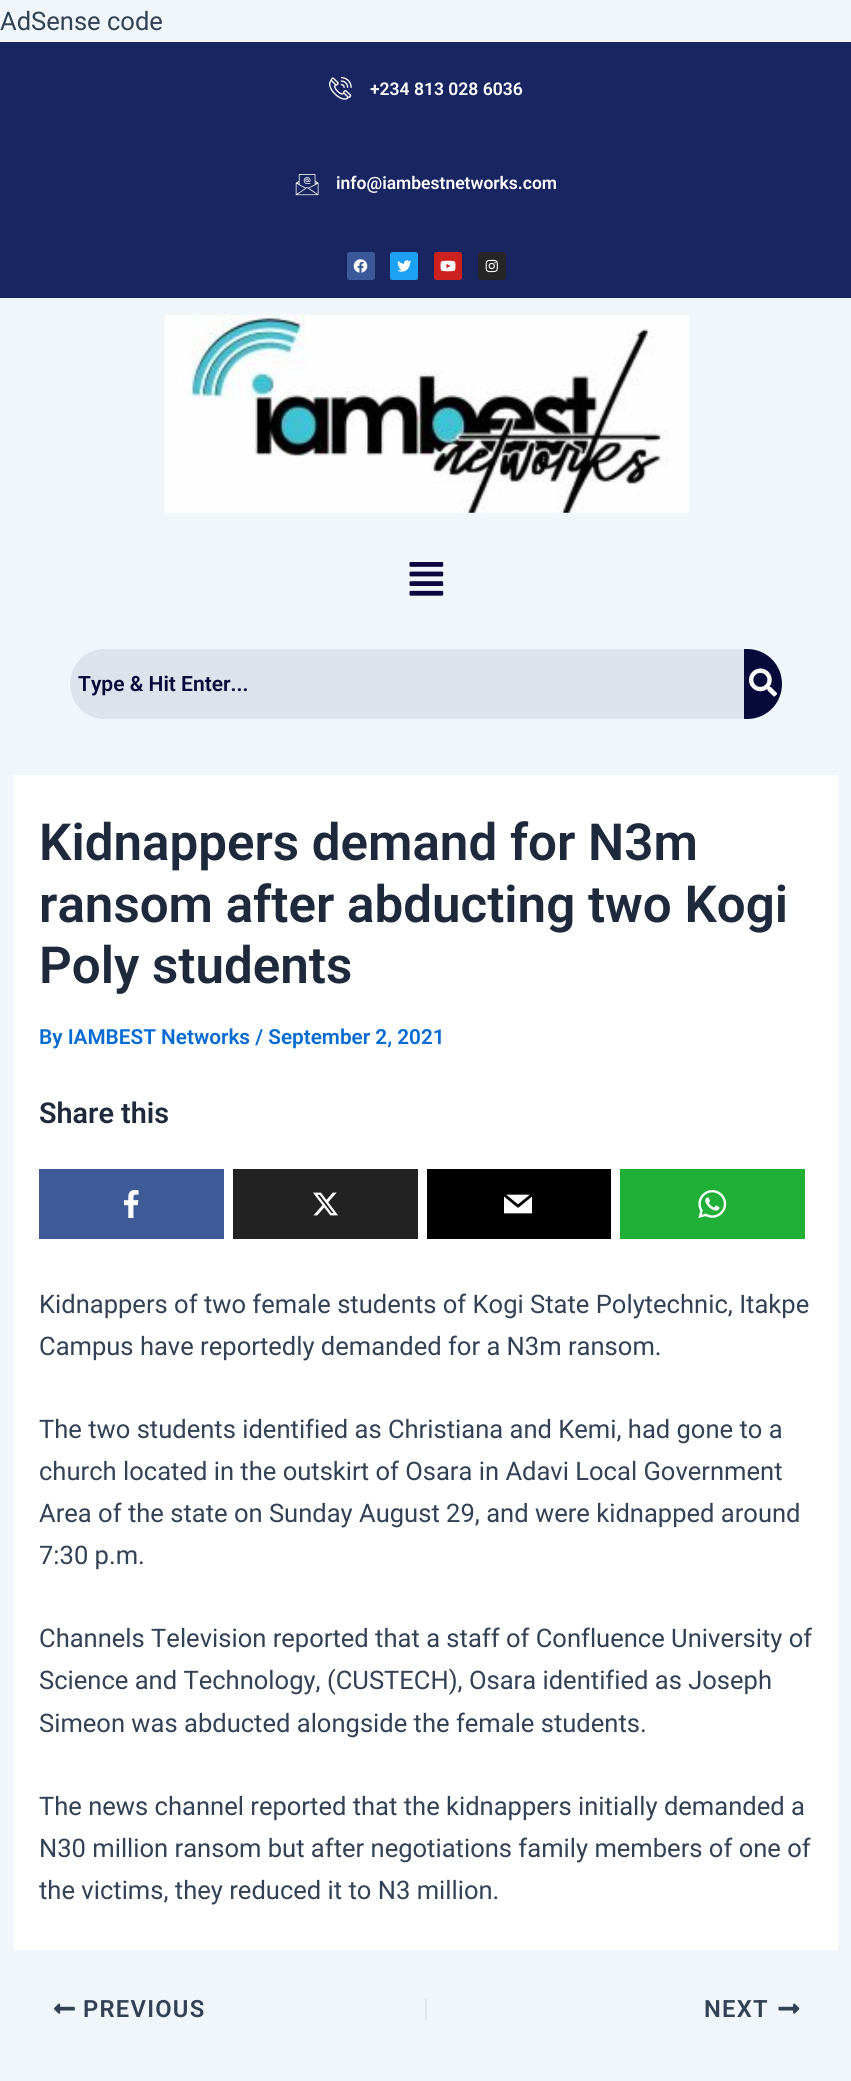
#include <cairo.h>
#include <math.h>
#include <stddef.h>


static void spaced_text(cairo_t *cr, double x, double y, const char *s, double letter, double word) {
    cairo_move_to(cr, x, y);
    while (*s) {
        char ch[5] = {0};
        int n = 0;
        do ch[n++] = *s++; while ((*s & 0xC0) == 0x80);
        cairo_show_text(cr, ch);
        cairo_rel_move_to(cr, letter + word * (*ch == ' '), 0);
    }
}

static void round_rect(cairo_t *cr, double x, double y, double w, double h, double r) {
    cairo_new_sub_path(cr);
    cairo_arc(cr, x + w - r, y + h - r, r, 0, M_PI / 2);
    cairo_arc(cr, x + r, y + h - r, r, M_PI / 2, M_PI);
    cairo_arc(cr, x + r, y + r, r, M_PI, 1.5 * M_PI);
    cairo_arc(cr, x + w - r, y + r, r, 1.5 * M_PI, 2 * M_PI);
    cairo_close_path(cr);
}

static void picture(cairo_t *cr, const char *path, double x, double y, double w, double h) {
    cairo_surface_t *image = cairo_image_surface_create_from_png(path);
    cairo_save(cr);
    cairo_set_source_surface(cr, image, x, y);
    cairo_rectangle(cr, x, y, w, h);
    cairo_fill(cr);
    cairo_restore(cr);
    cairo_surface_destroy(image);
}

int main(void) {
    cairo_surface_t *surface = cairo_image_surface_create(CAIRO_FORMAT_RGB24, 851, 2081);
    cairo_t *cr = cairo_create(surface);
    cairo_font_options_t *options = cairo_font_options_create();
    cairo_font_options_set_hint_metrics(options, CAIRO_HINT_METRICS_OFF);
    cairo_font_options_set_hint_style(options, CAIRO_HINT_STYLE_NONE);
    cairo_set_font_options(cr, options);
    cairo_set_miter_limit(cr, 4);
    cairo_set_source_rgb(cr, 0.941, 0.961, 0.98);
    cairo_paint(cr);
    cairo_select_font_face(cr, "Roboto", CAIRO_FONT_SLANT_NORMAL, CAIRO_FONT_WEIGHT_NORMAL);
    cairo_set_font_size(cr, 25.55);
    cairo_set_source_rgb(cr, 0.2, 0.255, 0.333);
    cairo_move_to(cr, 0, 30);
    cairo_show_text(cr, "AdSense code");
    cairo_set_source_rgb(cr, 0.094, 0.145, 0.376);
    cairo_rectangle(cr, 0, 42, 851, 256);
    cairo_fill(cr);
    picture(cr, "img1.png", 329, 77, 23, 23);
    cairo_select_font_face(cr, "Roboto SemiBold", CAIRO_FONT_SLANT_NORMAL, CAIRO_FONT_WEIGHT_NORMAL);
    cairo_set_font_size(cr, 17.5);
    cairo_set_source_rgb(cr, 1, 1, 1);
    cairo_move_to(cr, 370, 95);
    cairo_show_text(cr, "+234 813 028 6036");
    picture(cr, "img2.png", 295, 174, 24, 22);
    cairo_move_to(cr, 336, 189);
    cairo_show_text(cr, "info@iambestnetworks.com");
    cairo_set_source_rgb(cr, 0.231, 0.349, 0.596);
    round_rect(cr, 347, 252, 28, 28, 2.5);
    cairo_fill(cr);
    picture(cr, "img3.png", 353, 259, 15, 14);
    cairo_set_source_rgb(cr, 0.114, 0.631, 0.949);
    round_rect(cr, 390, 252, 28, 28, 2.5);
    cairo_fill(cr);
    picture(cr, "img4.png", 397, 260, 15, 12);
    cairo_set_source_rgb(cr, 0.804, 0.125, 0.122);
    round_rect(cr, 434, 252, 28, 28, 2.5);
    cairo_fill(cr);
    picture(cr, "img5.png", 440, 260, 16, 12);
    cairo_set_source_rgb(cr, 0.149, 0.149, 0.149);
    round_rect(cr, 478, 252, 28, 28, 2.5);
    cairo_fill(cr);
    picture(cr, "img6.png", 485, 259, 13, 14);
    picture(cr, "img7.png", 164, 315, 526, 198);
    picture(cr, "img8.png", 409, 562, 35, 34);
    cairo_set_source_rgb(cr, 0.867, 0.886, 0.922);
    cairo_new_path(cr);
    cairo_move_to(cr, 105, 649);
    cairo_line_to(cr, 744, 649);
    cairo_line_to(cr, 744, 719);
    cairo_line_to(cr, 105, 719);
    cairo_curve_to(cr, 85.5, 719, 70, 703.5, 70, 684);
    cairo_curve_to(cr, 70, 664.5, 85.5, 649, 105, 649);
    cairo_close_path(cr);
    cairo_fill(cr);
    cairo_set_font_size(cr, 21);
    cairo_set_source_rgb(cr, 0.024, 0.039, 0.227);
    cairo_move_to(cr, 78, 691);
    cairo_show_text(cr, "Type & Hit Enter...");
    cairo_new_path(cr);
    cairo_move_to(cr, 744, 649);
    cairo_line_to(cr, 747, 649);
    cairo_curve_to(cr, 766.5, 649, 782, 664.5, 782, 684);
    cairo_curve_to(cr, 782, 703.5, 766.5, 719, 747, 719);
    cairo_line_to(cr, 744, 719);
    cairo_close_path(cr);
    cairo_fill(cr);
    picture(cr, "img9.png", 749, 668, 28, 29);
    cairo_set_source_rgb(cr, 1, 1, 1);
    cairo_rectangle(cr, 14, 775, 824, 1175);
    cairo_fill(cr);
    cairo_set_font_size(cr, 51.1);
    cairo_set_source_rgb(cr, 0.118, 0.161, 0.231);
    cairo_move_to(cr, 39, 860);
    cairo_show_text(cr, "Kidnappers demand for N3m");
    cairo_move_to(cr, 39, 922);
    cairo_show_text(cr, "ransom after abducting two Kogi");
    cairo_move_to(cr, 39, 983);
    cairo_show_text(cr, "Poly students");
    cairo_set_font_size(cr, 20.75);
    cairo_set_source_rgb(cr, 0.016, 0.42, 0.824);
    cairo_move_to(cr, 39, 1044);
    cairo_show_text(cr, "By IAMBEST Networks / September 2, 2021");
    cairo_set_font_size(cr, 28.75);
    cairo_set_source_rgb(cr, 0.118, 0.161, 0.231);
    cairo_move_to(cr, 39, 1123);
    cairo_show_text(cr, "Share this");
    cairo_set_source_rgb(cr, 0.243, 0.357, 0.596);
    cairo_rectangle(cr, 39, 1169, 185, 70);
    cairo_fill(cr);
    picture(cr, "img10.png", 123, 1190, 16, 28);
    cairo_set_source_rgb(cr, 0.133, 0.133, 0.133);
    cairo_rectangle(cr, 233, 1169, 185, 70);
    cairo_fill(cr);
    picture(cr, "img11.png", 313, 1192, 25, 24);
    cairo_set_source_rgb(cr, 0, 0, 0);
    cairo_rectangle(cr, 427, 1169, 184, 70);
    cairo_fill(cr);
    picture(cr, "img12.png", 504, 1194, 28, 20);
    cairo_set_source_rgb(cr, 0.125, 0.69, 0.22);
    cairo_rectangle(cr, 620, 1169, 185, 70);
    cairo_fill(cr);
    picture(cr, "img13.png", 698, 1190, 29, 28);
    cairo_select_font_face(cr, "Roboto", CAIRO_FONT_SLANT_NORMAL, CAIRO_FONT_WEIGHT_NORMAL);
    cairo_set_font_size(cr, 25.55);
    cairo_set_source_rgb(cr, 0.2, 0.255, 0.333);
    cairo_move_to(cr, 39, 1313);
    cairo_show_text(cr, "Kidnappers of two female students of Kogi State Polytechnic, Itakpe");
    cairo_move_to(cr, 39, 1355);
    cairo_show_text(cr, "Campus have reportedly demanded for a N3m ransom.");
    cairo_move_to(cr, 39, 1438);
    cairo_show_text(cr, "The two students identified as Christiana and Kemi, had gone to a");
    cairo_move_to(cr, 39, 1480);
    cairo_show_text(cr, "church located in the outskirt of Osara in Adavi Local Government");
    cairo_move_to(cr, 39, 1522);
    cairo_show_text(cr, "Area of the state on Sunday August 29, and were kidnapped around");
    cairo_move_to(cr, 39, 1564);
    cairo_show_text(cr, "7:30 p.m.");
    cairo_move_to(cr, 39, 1647);
    cairo_show_text(cr, "Channels Television reported that a staff of Confluence University of");
    cairo_move_to(cr, 39, 1689);
    cairo_show_text(cr, "Science and Technology, (CUSTECH), Osara identified as Joseph");
    cairo_move_to(cr, 39, 1732);
    cairo_show_text(cr, "Simeon was abducted alongside the female students.");
    cairo_move_to(cr, 39, 1815);
    cairo_show_text(cr, "The news channel reported that the kidnappers initially demanded a");
    cairo_move_to(cr, 39, 1857);
    cairo_show_text(cr, "N30 million ransom but after negotiations family members of one of");
    cairo_move_to(cr, 39, 1899);
    cairo_show_text(cr, "the victims, they reduced it to N3 million.");
    picture(cr, "img14.png", 54, 2003, 21, 11);
    cairo_select_font_face(cr, "Roboto SemiBold", CAIRO_FONT_SLANT_NORMAL, CAIRO_FONT_WEIGHT_NORMAL);
    cairo_set_font_size(cr, 23.75);
    spaced_text(cr, 83, 2017, "PREVIOUS", 1.25, 0);
    cairo_set_source_rgb(cr, 0.882, 0.91, 0.929);
    cairo_rectangle(cr, 425, 1999, 2, 21);
    cairo_fill(cr);
    cairo_set_source_rgb(cr, 0.2, 0.255, 0.333);
    spaced_text(cr, 704, 2017, "NEXT", 1.25, 0);
    picture(cr, "img15.png", 778, 2003, 22, 11);
    cairo_surface_write_to_png(surface, "page.png");
    cairo_font_options_destroy(options);
    cairo_destroy(cr);
    cairo_surface_destroy(surface);
    return 0;
}
